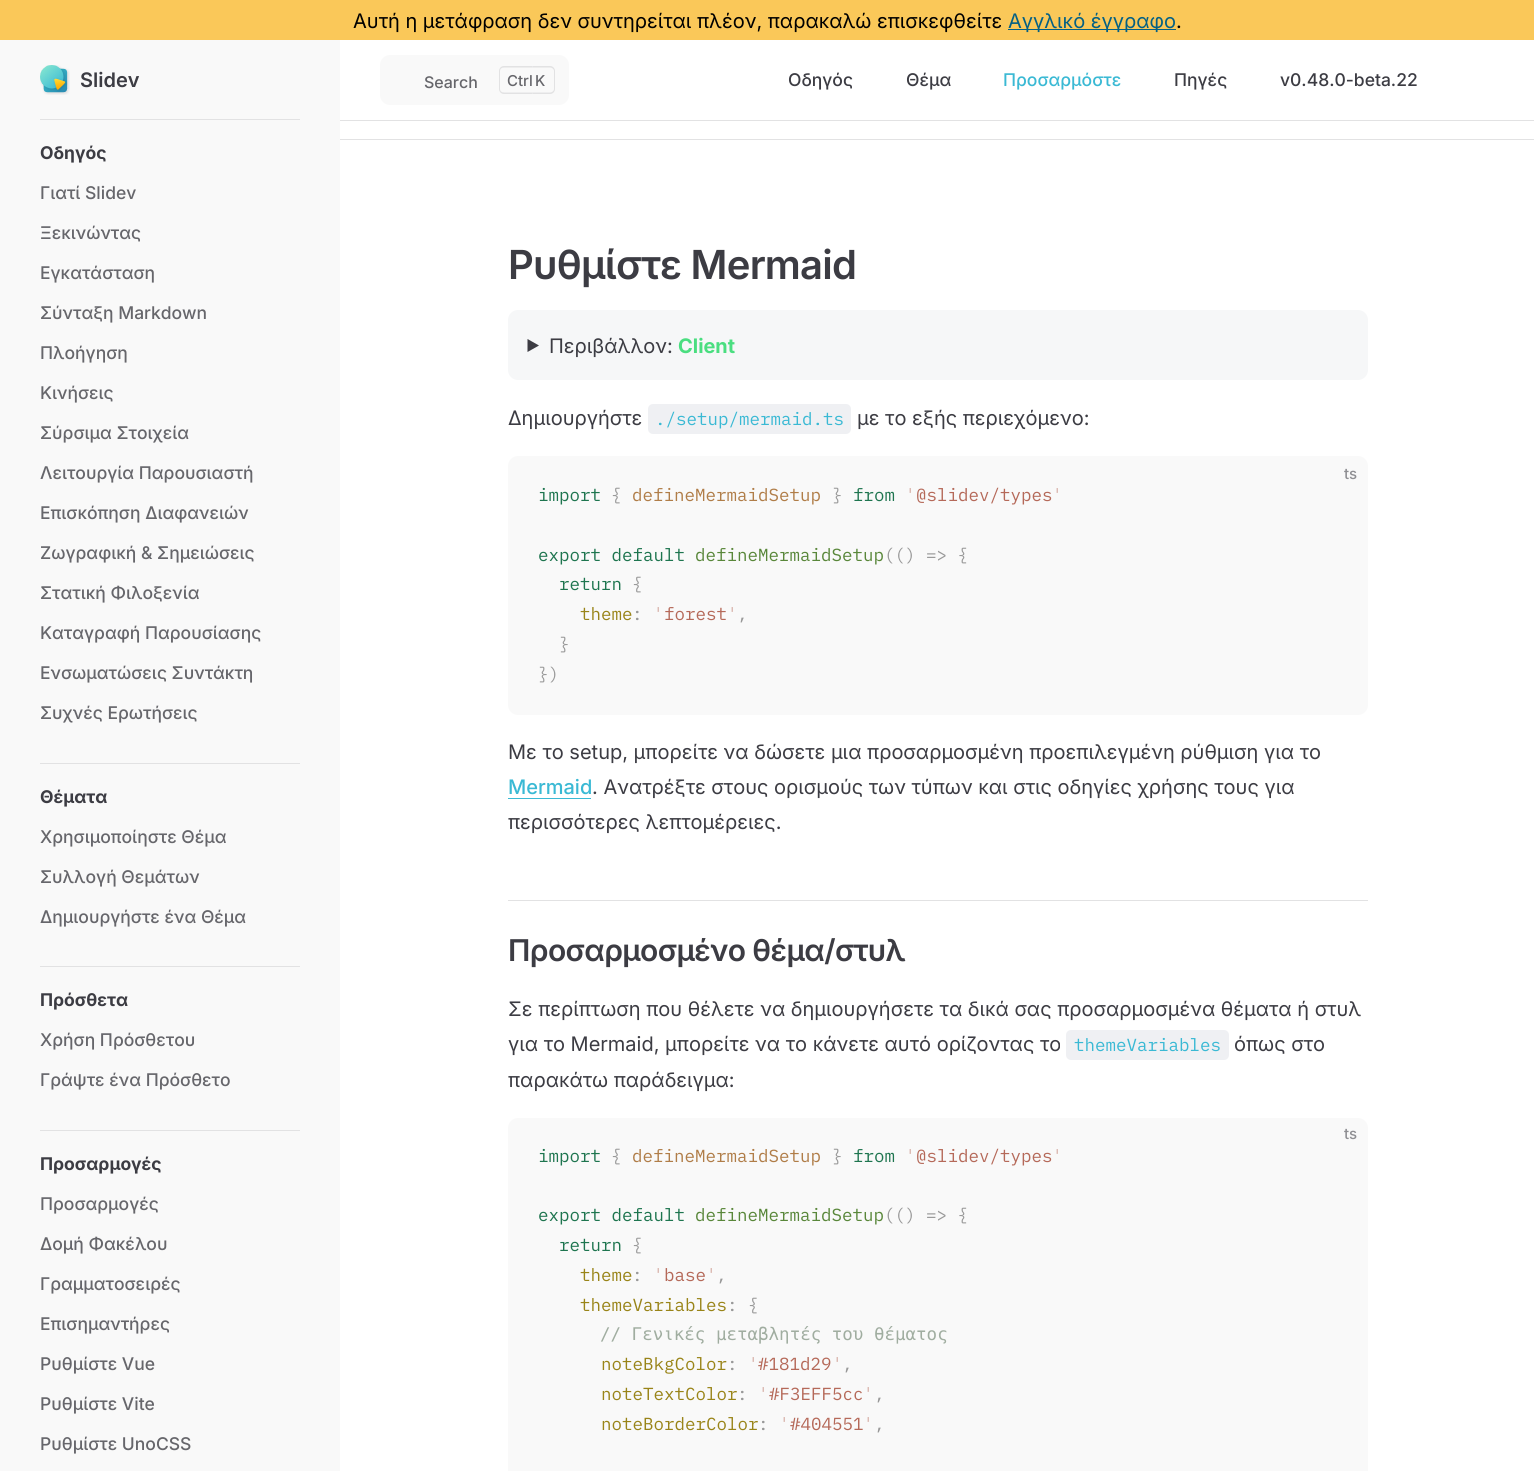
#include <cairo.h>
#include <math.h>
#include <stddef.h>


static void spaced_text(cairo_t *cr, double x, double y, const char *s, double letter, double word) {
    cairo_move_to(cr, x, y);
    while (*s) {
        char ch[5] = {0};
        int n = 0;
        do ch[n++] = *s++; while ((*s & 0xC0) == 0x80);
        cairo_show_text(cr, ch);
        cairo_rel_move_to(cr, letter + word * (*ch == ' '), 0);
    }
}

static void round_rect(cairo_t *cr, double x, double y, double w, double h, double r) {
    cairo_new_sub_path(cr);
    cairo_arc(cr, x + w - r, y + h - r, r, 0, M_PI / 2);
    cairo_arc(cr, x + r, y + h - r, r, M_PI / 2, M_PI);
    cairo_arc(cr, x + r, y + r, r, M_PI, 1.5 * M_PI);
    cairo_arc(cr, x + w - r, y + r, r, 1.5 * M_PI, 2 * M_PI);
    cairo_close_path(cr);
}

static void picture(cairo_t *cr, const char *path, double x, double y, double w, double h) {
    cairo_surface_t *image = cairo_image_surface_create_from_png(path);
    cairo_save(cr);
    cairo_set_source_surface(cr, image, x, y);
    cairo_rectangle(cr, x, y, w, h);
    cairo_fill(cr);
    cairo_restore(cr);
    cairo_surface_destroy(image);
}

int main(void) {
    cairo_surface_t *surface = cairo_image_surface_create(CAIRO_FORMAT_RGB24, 1534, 1471);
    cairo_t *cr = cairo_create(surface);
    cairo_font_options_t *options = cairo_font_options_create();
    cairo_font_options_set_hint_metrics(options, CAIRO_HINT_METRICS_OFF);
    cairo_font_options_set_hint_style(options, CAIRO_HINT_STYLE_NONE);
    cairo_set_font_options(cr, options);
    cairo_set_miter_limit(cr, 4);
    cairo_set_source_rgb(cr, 1, 1, 1);
    cairo_paint(cr);
    cairo_set_source_rgb(cr, 0.98, 0.784, 0.349);
    cairo_rectangle(cr, 0, 0, 1534, 40);
    cairo_fill(cr);
    cairo_select_font_face(cr, "Inter", CAIRO_FONT_SLANT_NORMAL, CAIRO_FONT_WEIGHT_NORMAL);
    cairo_set_font_size(cr, 20);
    cairo_set_source_rgb(cr, 0, 0, 0);
    cairo_move_to(cr, 353, 28);
    cairo_show_text(cr, "Αυτή η μετάφραση δεν συντηρείται πλέον, παρακαλώ επισκεφθείτε");
    cairo_set_source_rgb(cr, 0.016, 0.376, 0.518);
    cairo_rectangle(cr, 1008, 29, 168, 1);
    cairo_fill(cr);
    cairo_move_to(cr, 1008, 28);
    cairo_show_text(cr, "Αγγλικό έγγραφο");
    cairo_set_source_rgb(cr, 0, 0, 0);
    cairo_move_to(cr, 1176, 28);
    cairo_show_text(cr, ".");
    cairo_set_source_rgb(cr, 0.976, 0.976, 0.976);
    cairo_rectangle(cr, 0, 40, 340, 1431);
    cairo_fill(cr);
    cairo_set_source_rgb(cr, 0.886, 0.886, 0.89);
    cairo_rectangle(cr, 40, 119, 260, 1);
    cairo_fill(cr);
    picture(cr, "img1.png", 40, 65, 30, 30);
    cairo_select_font_face(cr, "Inter SemiBold", CAIRO_FONT_SLANT_NORMAL, CAIRO_FONT_WEIGHT_NORMAL);
    cairo_set_source_rgb(cr, 0.235, 0.235, 0.263);
    cairo_move_to(cr, 80, 87);
    cairo_show_text(cr, "Slidev");
    cairo_set_source_rgb(cr, 0.976, 0.976, 0.976);
    round_rect(cr, 380, 55, 189, 50, 10);
    cairo_fill(cr);
    cairo_select_font_face(cr, "Inter Medium", CAIRO_FONT_SLANT_NORMAL, CAIRO_FONT_WEIGHT_NORMAL);
    cairo_set_font_size(cr, 16);
    cairo_set_source_rgb(cr, 0.4, 0.4, 0.42);
    cairo_move_to(cr, 424, 88);
    cairo_show_text(cr, "Search");
    cairo_set_source_rgb(cr, 0.886, 0.886, 0.89);
    cairo_set_fill_rule(cr, CAIRO_FILL_RULE_EVEN_ODD);
    cairo_new_path(cr);
    cairo_move_to(cr, 504, 66);
    cairo_line_to(cr, 532.5, 66);
    cairo_line_to(cr, 532.5, 94);
    cairo_line_to(cr, 504, 94);
    cairo_curve_to(cr, 501, 94, 499, 91.5, 499, 89);
    cairo_line_to(cr, 499, 71);
    cairo_curve_to(cr, 499, 68.5, 501, 66, 504, 66);
    cairo_close_path(cr);
    cairo_move_to(cr, 504, 67.5);
    cairo_line_to(cr, 532.5, 67.5);
    cairo_line_to(cr, 532.5, 92.5);
    cairo_line_to(cr, 504, 92.5);
    cairo_curve_to(cr, 501.5, 92.5, 500, 91, 500, 89);
    cairo_line_to(cr, 500, 71);
    cairo_curve_to(cr, 500, 69, 501.5, 67.5, 504, 67.5);
    cairo_close_path(cr);
    cairo_fill(cr);
    cairo_set_font_size(cr, 15);
    cairo_set_source_rgb(cr, 0.4, 0.4, 0.42);
    cairo_move_to(cr, 507, 86);
    cairo_show_text(cr, "Ctrl");
    cairo_set_source_rgb(cr, 0.886, 0.886, 0.89);
    cairo_new_path(cr);
    cairo_move_to(cr, 532.5, 66);
    cairo_line_to(cr, 550, 66);
    cairo_curve_to(cr, 553, 66, 555, 68.5, 555, 71);
    cairo_line_to(cr, 555, 89);
    cairo_curve_to(cr, 555, 91.5, 553, 94, 550, 94);
    cairo_line_to(cr, 532.5, 94);
    cairo_close_path(cr);
    cairo_move_to(cr, 532.5, 67.5);
    cairo_line_to(cr, 550, 67.5);
    cairo_curve_to(cr, 552, 67.5, 554, 69, 554, 71);
    cairo_line_to(cr, 554, 89);
    cairo_curve_to(cr, 554, 91, 552, 92.5, 550, 92.5);
    cairo_line_to(cr, 532.5, 92.5);
    cairo_close_path(cr);
    cairo_fill(cr);
    cairo_set_source_rgb(cr, 0.4, 0.4, 0.42);
    cairo_move_to(cr, 535, 86);
    cairo_show_text(cr, "K");
    cairo_set_font_size(cr, 17.5);
    cairo_set_source_rgb(cr, 0.235, 0.235, 0.263);
    cairo_move_to(cr, 788, 86);
    cairo_show_text(cr, "Οδηγός");
    cairo_move_to(cr, 906, 86);
    cairo_show_text(cr, "Θέμα");
    cairo_set_source_rgb(cr, 0.227, 0.725, 0.831);
    cairo_move_to(cr, 1003, 86);
    cairo_show_text(cr, "Προσαρμόστε");
    cairo_set_source_rgb(cr, 0.235, 0.235, 0.263);
    cairo_move_to(cr, 1174, 86);
    cairo_show_text(cr, "Πηγές");
    cairo_move_to(cr, 1280, 86);
    cairo_show_text(cr, "v0.48.0-beta.22");
    cairo_set_source_rgb(cr, 0.886, 0.886, 0.89);
    cairo_rectangle(cr, 340, 120, 1194, 1);
    cairo_fill(cr);
    cairo_rectangle(cr, 340, 139, 1194, 1);
    cairo_fill(cr);
    cairo_select_font_face(cr, "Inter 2", CAIRO_FONT_SLANT_NORMAL, CAIRO_FONT_WEIGHT_BOLD);
    cairo_set_source_rgb(cr, 0.235, 0.235, 0.263);
    cairo_move_to(cr, 40, 159);
    cairo_show_text(cr, "Οδηγός");
    cairo_select_font_face(cr, "Inter Medium", CAIRO_FONT_SLANT_NORMAL, CAIRO_FONT_WEIGHT_NORMAL);
    cairo_set_source_rgb(cr, 0.4, 0.4, 0.42);
    cairo_move_to(cr, 40, 199);
    cairo_show_text(cr, "Γιατί Slidev");
    cairo_move_to(cr, 40, 239);
    cairo_show_text(cr, "Ξεκινώντας");
    cairo_move_to(cr, 40, 279);
    cairo_show_text(cr, "Εγκατάσταση");
    cairo_move_to(cr, 40, 319);
    cairo_show_text(cr, "Σύνταξη Markdown");
    cairo_move_to(cr, 40, 359);
    cairo_show_text(cr, "Πλοήγηση");
    cairo_move_to(cr, 40, 399);
    cairo_show_text(cr, "Κινήσεις");
    cairo_move_to(cr, 40, 439);
    cairo_show_text(cr, "Σύρσιμα Στοιχεία");
    cairo_move_to(cr, 40, 479);
    cairo_show_text(cr, "Λειτουργία Παρουσιαστή");
    cairo_move_to(cr, 40, 519);
    cairo_show_text(cr, "Επισκόπηση Διαφανειών");
    cairo_move_to(cr, 40, 559);
    cairo_show_text(cr, "Ζωγραφική & Σημειώσεις");
    cairo_move_to(cr, 40, 599);
    cairo_show_text(cr, "Στατική Φιλοξενία");
    cairo_move_to(cr, 40, 639);
    cairo_show_text(cr, "Καταγραφή Παρουσίασης");
    cairo_move_to(cr, 40, 679);
    cairo_show_text(cr, "Ενσωματώσεις Συντάκτη");
    cairo_move_to(cr, 40, 719);
    cairo_show_text(cr, "Συχνές Ερωτήσεις");
    cairo_set_source_rgb(cr, 0.886, 0.886, 0.89);
    cairo_rectangle(cr, 40, 763, 260, 1);
    cairo_fill(cr);
    cairo_select_font_face(cr, "Inter 2", CAIRO_FONT_SLANT_NORMAL, CAIRO_FONT_WEIGHT_BOLD);
    cairo_set_source_rgb(cr, 0.235, 0.235, 0.263);
    cairo_move_to(cr, 40, 803);
    cairo_show_text(cr, "Θέματα");
    cairo_select_font_face(cr, "Inter Medium", CAIRO_FONT_SLANT_NORMAL, CAIRO_FONT_WEIGHT_NORMAL);
    cairo_set_source_rgb(cr, 0.4, 0.4, 0.42);
    cairo_move_to(cr, 40, 843);
    cairo_show_text(cr, "Χρησιμοποίηστε Θέμα");
    cairo_move_to(cr, 40, 883);
    cairo_show_text(cr, "Συλλογή Θεμάτων");
    cairo_move_to(cr, 40, 923);
    cairo_show_text(cr, "Δημιουργήστε ένα Θέμα");
    cairo_set_source_rgb(cr, 0.886, 0.886, 0.89);
    cairo_rectangle(cr, 40, 966, 260, 1);
    cairo_fill(cr);
    cairo_select_font_face(cr, "Inter 2", CAIRO_FONT_SLANT_NORMAL, CAIRO_FONT_WEIGHT_BOLD);
    cairo_set_source_rgb(cr, 0.235, 0.235, 0.263);
    cairo_move_to(cr, 40, 1006);
    cairo_show_text(cr, "Πρόσθετα");
    cairo_select_font_face(cr, "Inter Medium", CAIRO_FONT_SLANT_NORMAL, CAIRO_FONT_WEIGHT_NORMAL);
    cairo_set_source_rgb(cr, 0.4, 0.4, 0.42);
    cairo_move_to(cr, 40, 1046);
    cairo_show_text(cr, "Χρήση Πρόσθετου");
    cairo_move_to(cr, 40, 1086);
    cairo_show_text(cr, "Γράψτε ένα Πρόσθετο");
    cairo_set_source_rgb(cr, 0.886, 0.886, 0.89);
    cairo_rectangle(cr, 40, 1130, 260, 1);
    cairo_fill(cr);
    cairo_select_font_face(cr, "Inter 2", CAIRO_FONT_SLANT_NORMAL, CAIRO_FONT_WEIGHT_BOLD);
    cairo_set_source_rgb(cr, 0.235, 0.235, 0.263);
    cairo_move_to(cr, 40, 1170);
    cairo_show_text(cr, "Προσαρμογές");
    cairo_select_font_face(cr, "Inter Medium", CAIRO_FONT_SLANT_NORMAL, CAIRO_FONT_WEIGHT_NORMAL);
    cairo_set_source_rgb(cr, 0.4, 0.4, 0.42);
    cairo_move_to(cr, 40, 1210);
    cairo_show_text(cr, "Προσαρμογές");
    cairo_move_to(cr, 40, 1250);
    cairo_show_text(cr, "Δομή Φακέλου");
    cairo_move_to(cr, 40, 1290);
    cairo_show_text(cr, "Γραμματοσειρές");
    cairo_move_to(cr, 40, 1330);
    cairo_show_text(cr, "Επισημαντήρες");
    cairo_move_to(cr, 40, 1370);
    cairo_show_text(cr, "Ρυθμίστε Vue");
    cairo_move_to(cr, 40, 1410);
    cairo_show_text(cr, "Ρυθμίστε Vite");
    cairo_move_to(cr, 40, 1450);
    cairo_show_text(cr, "Ρυθμίστε UnoCSS");
    cairo_select_font_face(cr, "Inter SemiBold", CAIRO_FONT_SLANT_NORMAL, CAIRO_FONT_WEIGHT_NORMAL);
    cairo_set_font_size(cr, 40);
    cairo_set_source_rgb(cr, 0.235, 0.235, 0.263);
    spaced_text(cr, 508, 279, "Ρυθμίστε Mermaid", -0.75, 0);
    cairo_set_source_rgb(cr, 0.961, 0.965, 0.969);
    round_rect(cr, 508, 310, 860, 70, 10);
    cairo_fill(cr);
    cairo_set_source_rgb(cr, 0.235, 0.235, 0.263);
    cairo_set_fill_rule(cr, CAIRO_FILL_RULE_WINDING);
    cairo_new_path(cr);
    cairo_move_to(cr, 527.5, 339);
    cairo_line_to(cr, 539, 345.5);
    cairo_line_to(cr, 527.5, 352);
    cairo_close_path(cr);
    cairo_fill(cr);
    cairo_select_font_face(cr, "Inter", CAIRO_FONT_SLANT_NORMAL, CAIRO_FONT_WEIGHT_NORMAL);
    cairo_set_font_size(cr, 20);
    cairo_move_to(cr, 549, 353);
    cairo_show_text(cr, "Περιβάλλον:");
    cairo_select_font_face(cr, "Inter", CAIRO_FONT_SLANT_NORMAL, CAIRO_FONT_WEIGHT_BOLD);
    cairo_set_source_rgb(cr, 0.29, 0.871, 0.502);
    cairo_move_to(cr, 678, 353);
    cairo_show_text(cr, "Client");
    cairo_select_font_face(cr, "Inter", CAIRO_FONT_SLANT_NORMAL, CAIRO_FONT_WEIGHT_NORMAL);
    cairo_set_source_rgb(cr, 0.235, 0.235, 0.263);
    cairo_move_to(cr, 508, 425);
    cairo_show_text(cr, "Δημιουργήστε");
    cairo_set_source_rgb(cr, 0.937, 0.941, 0.953);
    round_rect(cr, 648, 404, 203, 30, 5);
    cairo_fill(cr);
    cairo_select_font_face(cr, "IBM Plex Mono", CAIRO_FONT_SLANT_NORMAL, CAIRO_FONT_WEIGHT_NORMAL);
    cairo_set_font_size(cr, 17.5);
    cairo_set_source_rgb(cr, 0.227, 0.725, 0.831);
    cairo_move_to(cr, 655, 425);
    cairo_show_text(cr, "./setup/mermaid.ts");
    cairo_select_font_face(cr, "Inter", CAIRO_FONT_SLANT_NORMAL, CAIRO_FONT_WEIGHT_NORMAL);
    cairo_set_font_size(cr, 20);
    cairo_set_source_rgb(cr, 0.235, 0.235, 0.263);
    cairo_move_to(cr, 857, 425);
    cairo_show_text(cr, "με το εξής περιεχόμενο:");
    cairo_set_source_rgb(cr, 0.976, 0.976, 0.976);
    round_rect(cr, 508, 456, 860, 259, 10);
    cairo_fill(cr);
    cairo_select_font_face(cr, "Inter Medium", CAIRO_FONT_SLANT_NORMAL, CAIRO_FONT_WEIGHT_NORMAL);
    cairo_set_font_size(cr, 15);
    cairo_set_source_rgb(cr, 0.561, 0.561, 0.576);
    cairo_move_to(cr, 1344, 479);
    cairo_show_text(cr, "ts");
    cairo_select_font_face(cr, "IBM Plex Mono", CAIRO_FONT_SLANT_NORMAL, CAIRO_FONT_WEIGHT_NORMAL);
    cairo_set_font_size(cr, 17.5);
    cairo_set_source_rgb(cr, 0.118, 0.459, 0.31);
    cairo_move_to(cr, 538, 501);
    cairo_show_text(cr, "import");
    cairo_set_source_rgb(cr, 0.6, 0.6, 0.6);
    cairo_move_to(cr, 611, 501);
    cairo_show_text(cr, "{");
    cairo_set_source_rgb(cr, 0.69, 0.49, 0.282);
    cairo_move_to(cr, 632, 501);
    cairo_show_text(cr, "defineMermaidSetup");
    cairo_set_source_rgb(cr, 0.6, 0.6, 0.6);
    cairo_move_to(cr, 832, 501);
    cairo_show_text(cr, "}");
    cairo_set_source_rgb(cr, 0.118, 0.459, 0.31);
    cairo_move_to(cr, 853, 501);
    cairo_show_text(cr, "from");
    cairo_set_source_rgb(cr, 0.851, 0.714, 0.682);
    cairo_move_to(cr, 905, 501);
    cairo_show_text(cr, "'");
    cairo_set_source_rgb(cr, 0.71, 0.412, 0.349);
    cairo_move_to(cr, 916, 501);
    cairo_show_text(cr, "@slidev/types");
    cairo_set_source_rgb(cr, 0.851, 0.714, 0.682);
    cairo_move_to(cr, 1052, 501);
    cairo_show_text(cr, "'");
    cairo_set_source_rgb(cr, 0.118, 0.459, 0.31);
    cairo_move_to(cr, 538, 561);
    cairo_show_text(cr, "export default");
    cairo_set_source_rgb(cr, 0.349, 0.529, 0.227);
    cairo_move_to(cr, 695, 561);
    cairo_show_text(cr, "defineMermaidSetup");
    cairo_set_source_rgb(cr, 0.6, 0.6, 0.6);
    cairo_move_to(cr, 884, 561);
    cairo_show_text(cr, "(() => {");
    cairo_set_source_rgb(cr, 0.118, 0.459, 0.31);
    cairo_move_to(cr, 559, 590);
    cairo_show_text(cr, "return");
    cairo_set_source_rgb(cr, 0.6, 0.6, 0.6);
    cairo_move_to(cr, 632, 590);
    cairo_show_text(cr, "{");
    cairo_set_source_rgb(cr, 0.6, 0.518, 0.094);
    cairo_move_to(cr, 580, 620);
    cairo_show_text(cr, "theme");
    cairo_set_source_rgb(cr, 0.851, 0.714, 0.682);
    cairo_move_to(cr, 653, 620);
    cairo_show_text(cr, "'");
    cairo_set_source_rgb(cr, 0.71, 0.412, 0.349);
    cairo_move_to(cr, 664, 620);
    cairo_show_text(cr, "forest");
    cairo_set_source_rgb(cr, 0.851, 0.714, 0.682);
    cairo_move_to(cr, 727, 620);
    cairo_show_text(cr, "'");
    cairo_set_source_rgb(cr, 0.6, 0.6, 0.6);
    cairo_move_to(cr, 632, 620);
    cairo_show_text(cr, ":");
    cairo_move_to(cr, 737, 620);
    cairo_show_text(cr, ",");
    cairo_move_to(cr, 559, 650);
    cairo_show_text(cr, "}");
    cairo_move_to(cr, 538, 680);
    cairo_show_text(cr, "})");
    cairo_select_font_face(cr, "Inter", CAIRO_FONT_SLANT_NORMAL, CAIRO_FONT_WEIGHT_NORMAL);
    cairo_set_font_size(cr, 20);
    cairo_set_source_rgb(cr, 0.235, 0.235, 0.263);
    cairo_move_to(cr, 508, 759);
    cairo_show_text(cr, "Με το setup, μπορείτε να δώσετε μια προσαρμοσμένη προεπιλεγμένη ρύθμιση για το");
    cairo_select_font_face(cr, "Inter Medium", CAIRO_FONT_SLANT_NORMAL, CAIRO_FONT_WEIGHT_NORMAL);
    cairo_set_source_rgb(cr, 0.227, 0.725, 0.831);
    cairo_move_to(cr, 508, 794);
    cairo_show_text(cr, "Mermaid");
    cairo_rectangle(cr, 508, 798, 83, 1);
    cairo_fill(cr);
    cairo_select_font_face(cr, "Inter", CAIRO_FONT_SLANT_NORMAL, CAIRO_FONT_WEIGHT_NORMAL);
    cairo_set_source_rgb(cr, 0.235, 0.235, 0.263);
    cairo_move_to(cr, 592, 794);
    cairo_show_text(cr, ". Ανατρέξτε στους ορισμούς των τύπων και στις οδηγίες χρήσης τους για");
    cairo_move_to(cr, 508, 829);
    cairo_show_text(cr, "περισσότερες λεπτομέρειες.");
    cairo_set_source_rgb(cr, 0.886, 0.886, 0.89);
    cairo_rectangle(cr, 508, 900, 860, 1);
    cairo_fill(cr);
    cairo_select_font_face(cr, "Inter SemiBold", CAIRO_FONT_SLANT_NORMAL, CAIRO_FONT_WEIGHT_NORMAL);
    cairo_set_font_size(cr, 30);
    cairo_set_source_rgb(cr, 0.235, 0.235, 0.263);
    spaced_text(cr, 508, 961, "Προσαρμοσμένο θέμα/στυλ", -0.6, 0);
    cairo_select_font_face(cr, "Inter", CAIRO_FONT_SLANT_NORMAL, CAIRO_FONT_WEIGHT_NORMAL);
    cairo_set_font_size(cr, 20);
    cairo_move_to(cr, 508, 1016);
    cairo_show_text(cr, "Σε περίπτωση που θέλετε να δημιουργήσετε τα δικά σας προσαρμοσμένα θέματα ή στυλ");
    cairo_move_to(cr, 508, 1051);
    cairo_show_text(cr, "για το Mermaid, μπορείτε να το κάνετε αυτό ορίζοντας το");
    cairo_set_source_rgb(cr, 0.937, 0.941, 0.953);
    round_rect(cr, 1066, 1030, 163, 30, 5);
    cairo_fill(cr);
    cairo_select_font_face(cr, "IBM Plex Mono", CAIRO_FONT_SLANT_NORMAL, CAIRO_FONT_WEIGHT_NORMAL);
    cairo_set_font_size(cr, 17.5);
    cairo_set_source_rgb(cr, 0.227, 0.725, 0.831);
    cairo_move_to(cr, 1074, 1051);
    cairo_show_text(cr, "themeVariables");
    cairo_select_font_face(cr, "Inter", CAIRO_FONT_SLANT_NORMAL, CAIRO_FONT_WEIGHT_NORMAL);
    cairo_set_font_size(cr, 20);
    cairo_set_source_rgb(cr, 0.235, 0.235, 0.263);
    cairo_move_to(cr, 1234, 1051);
    cairo_show_text(cr, "όπως στο");
    cairo_move_to(cr, 508, 1087);
    cairo_show_text(cr, "παρακάτω παράδειγμα:");
    cairo_set_source_rgb(cr, 0.976, 0.976, 0.976);
    round_rect(cr, 508, 1118, 860, 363, 10);
    cairo_fill(cr);
    cairo_select_font_face(cr, "Inter Medium", CAIRO_FONT_SLANT_NORMAL, CAIRO_FONT_WEIGHT_NORMAL);
    cairo_set_font_size(cr, 15);
    cairo_set_source_rgb(cr, 0.561, 0.561, 0.576);
    cairo_move_to(cr, 1344, 1139);
    cairo_show_text(cr, "ts");
    cairo_select_font_face(cr, "IBM Plex Mono", CAIRO_FONT_SLANT_NORMAL, CAIRO_FONT_WEIGHT_NORMAL);
    cairo_set_font_size(cr, 17.5);
    cairo_set_source_rgb(cr, 0.118, 0.459, 0.31);
    cairo_move_to(cr, 538, 1162);
    cairo_show_text(cr, "import");
    cairo_set_source_rgb(cr, 0.6, 0.6, 0.6);
    cairo_move_to(cr, 611, 1162);
    cairo_show_text(cr, "{");
    cairo_set_source_rgb(cr, 0.69, 0.49, 0.282);
    cairo_move_to(cr, 632, 1162);
    cairo_show_text(cr, "defineMermaidSetup");
    cairo_set_source_rgb(cr, 0.6, 0.6, 0.6);
    cairo_move_to(cr, 832, 1162);
    cairo_show_text(cr, "}");
    cairo_set_source_rgb(cr, 0.118, 0.459, 0.31);
    cairo_move_to(cr, 853, 1162);
    cairo_show_text(cr, "from");
    cairo_set_source_rgb(cr, 0.851, 0.714, 0.682);
    cairo_move_to(cr, 905, 1162);
    cairo_show_text(cr, "'");
    cairo_set_source_rgb(cr, 0.71, 0.412, 0.349);
    cairo_move_to(cr, 916, 1162);
    cairo_show_text(cr, "@slidev/types");
    cairo_set_source_rgb(cr, 0.851, 0.714, 0.682);
    cairo_move_to(cr, 1052, 1162);
    cairo_show_text(cr, "'");
    cairo_set_source_rgb(cr, 0.118, 0.459, 0.31);
    cairo_move_to(cr, 538, 1221);
    cairo_show_text(cr, "export default");
    cairo_set_source_rgb(cr, 0.349, 0.529, 0.227);
    cairo_move_to(cr, 695, 1221);
    cairo_show_text(cr, "defineMermaidSetup");
    cairo_set_source_rgb(cr, 0.6, 0.6, 0.6);
    cairo_move_to(cr, 884, 1221);
    cairo_show_text(cr, "(() => {");
    cairo_set_source_rgb(cr, 0.118, 0.459, 0.31);
    cairo_move_to(cr, 559, 1251);
    cairo_show_text(cr, "return");
    cairo_set_source_rgb(cr, 0.6, 0.6, 0.6);
    cairo_move_to(cr, 632, 1251);
    cairo_show_text(cr, "{");
    cairo_set_source_rgb(cr, 0.6, 0.518, 0.094);
    cairo_move_to(cr, 580, 1281);
    cairo_show_text(cr, "theme");
    cairo_set_source_rgb(cr, 0.851, 0.714, 0.682);
    cairo_move_to(cr, 653, 1281);
    cairo_show_text(cr, "'");
    cairo_set_source_rgb(cr, 0.71, 0.412, 0.349);
    cairo_move_to(cr, 664, 1281);
    cairo_show_text(cr, "base");
    cairo_set_source_rgb(cr, 0.851, 0.714, 0.682);
    cairo_move_to(cr, 706, 1281);
    cairo_show_text(cr, "'");
    cairo_set_source_rgb(cr, 0.6, 0.6, 0.6);
    cairo_move_to(cr, 632, 1281);
    cairo_show_text(cr, ":");
    cairo_move_to(cr, 716, 1281);
    cairo_show_text(cr, ",");
    cairo_set_source_rgb(cr, 0.6, 0.518, 0.094);
    cairo_move_to(cr, 580, 1311);
    cairo_show_text(cr, "themeVariables");
    cairo_set_source_rgb(cr, 0.6, 0.6, 0.6);
    cairo_move_to(cr, 727, 1311);
    cairo_show_text(cr, ": {");
    cairo_select_font_face(cr, "DejaVu Sans Mono", CAIRO_FONT_SLANT_NORMAL, CAIRO_FONT_WEIGHT_NORMAL);
    cairo_set_source_rgb(cr, 0.627, 0.678, 0.627);
    cairo_move_to(cr, 600, 1340);
    cairo_show_text(cr, "// Γενικές μεταβλητές του θέματος");
    cairo_select_font_face(cr, "IBM Plex Mono", CAIRO_FONT_SLANT_NORMAL, CAIRO_FONT_WEIGHT_NORMAL);
    cairo_set_source_rgb(cr, 0.6, 0.518, 0.094);
    cairo_move_to(cr, 601, 1370);
    cairo_show_text(cr, "noteBkgColor");
    cairo_set_source_rgb(cr, 0.851, 0.714, 0.682);
    cairo_move_to(cr, 748, 1370);
    cairo_show_text(cr, "'");
    cairo_set_source_rgb(cr, 0.71, 0.412, 0.349);
    cairo_move_to(cr, 758, 1370);
    cairo_show_text(cr, "#181d29");
    cairo_set_source_rgb(cr, 0.851, 0.714, 0.682);
    cairo_move_to(cr, 832, 1370);
    cairo_show_text(cr, "'");
    cairo_set_source_rgb(cr, 0.6, 0.6, 0.6);
    cairo_move_to(cr, 727, 1370);
    cairo_show_text(cr, ":");
    cairo_move_to(cr, 842, 1370);
    cairo_show_text(cr, ",");
    cairo_set_source_rgb(cr, 0.6, 0.518, 0.094);
    cairo_move_to(cr, 601, 1400);
    cairo_show_text(cr, "noteTextColor");
    cairo_set_source_rgb(cr, 0.851, 0.714, 0.682);
    cairo_move_to(cr, 758, 1400);
    cairo_show_text(cr, "'");
    cairo_set_source_rgb(cr, 0.71, 0.412, 0.349);
    cairo_move_to(cr, 769, 1400);
    cairo_show_text(cr, "#F3EFF5cc");
    cairo_set_source_rgb(cr, 0.851, 0.714, 0.682);
    cairo_move_to(cr, 863, 1400);
    cairo_show_text(cr, "'");
    cairo_set_source_rgb(cr, 0.6, 0.6, 0.6);
    cairo_move_to(cr, 737, 1400);
    cairo_show_text(cr, ":");
    cairo_move_to(cr, 874, 1400);
    cairo_show_text(cr, ",");
    cairo_set_source_rgb(cr, 0.6, 0.518, 0.094);
    cairo_move_to(cr, 601, 1430);
    cairo_show_text(cr, "noteBorderColor");
    cairo_set_source_rgb(cr, 0.851, 0.714, 0.682);
    cairo_move_to(cr, 779, 1430);
    cairo_show_text(cr, "'");
    cairo_set_source_rgb(cr, 0.71, 0.412, 0.349);
    cairo_move_to(cr, 790, 1430);
    cairo_show_text(cr, "#404551");
    cairo_set_source_rgb(cr, 0.851, 0.714, 0.682);
    cairo_move_to(cr, 863, 1430);
    cairo_show_text(cr, "'");
    cairo_set_source_rgb(cr, 0.6, 0.6, 0.6);
    cairo_move_to(cr, 758, 1430);
    cairo_show_text(cr, ":");
    cairo_move_to(cr, 874, 1430);
    cairo_show_text(cr, ",");
    cairo_surface_write_to_png(surface, "page.png");
    cairo_font_options_destroy(options);
    cairo_destroy(cr);
    cairo_surface_destroy(surface);
    return 0;
}
